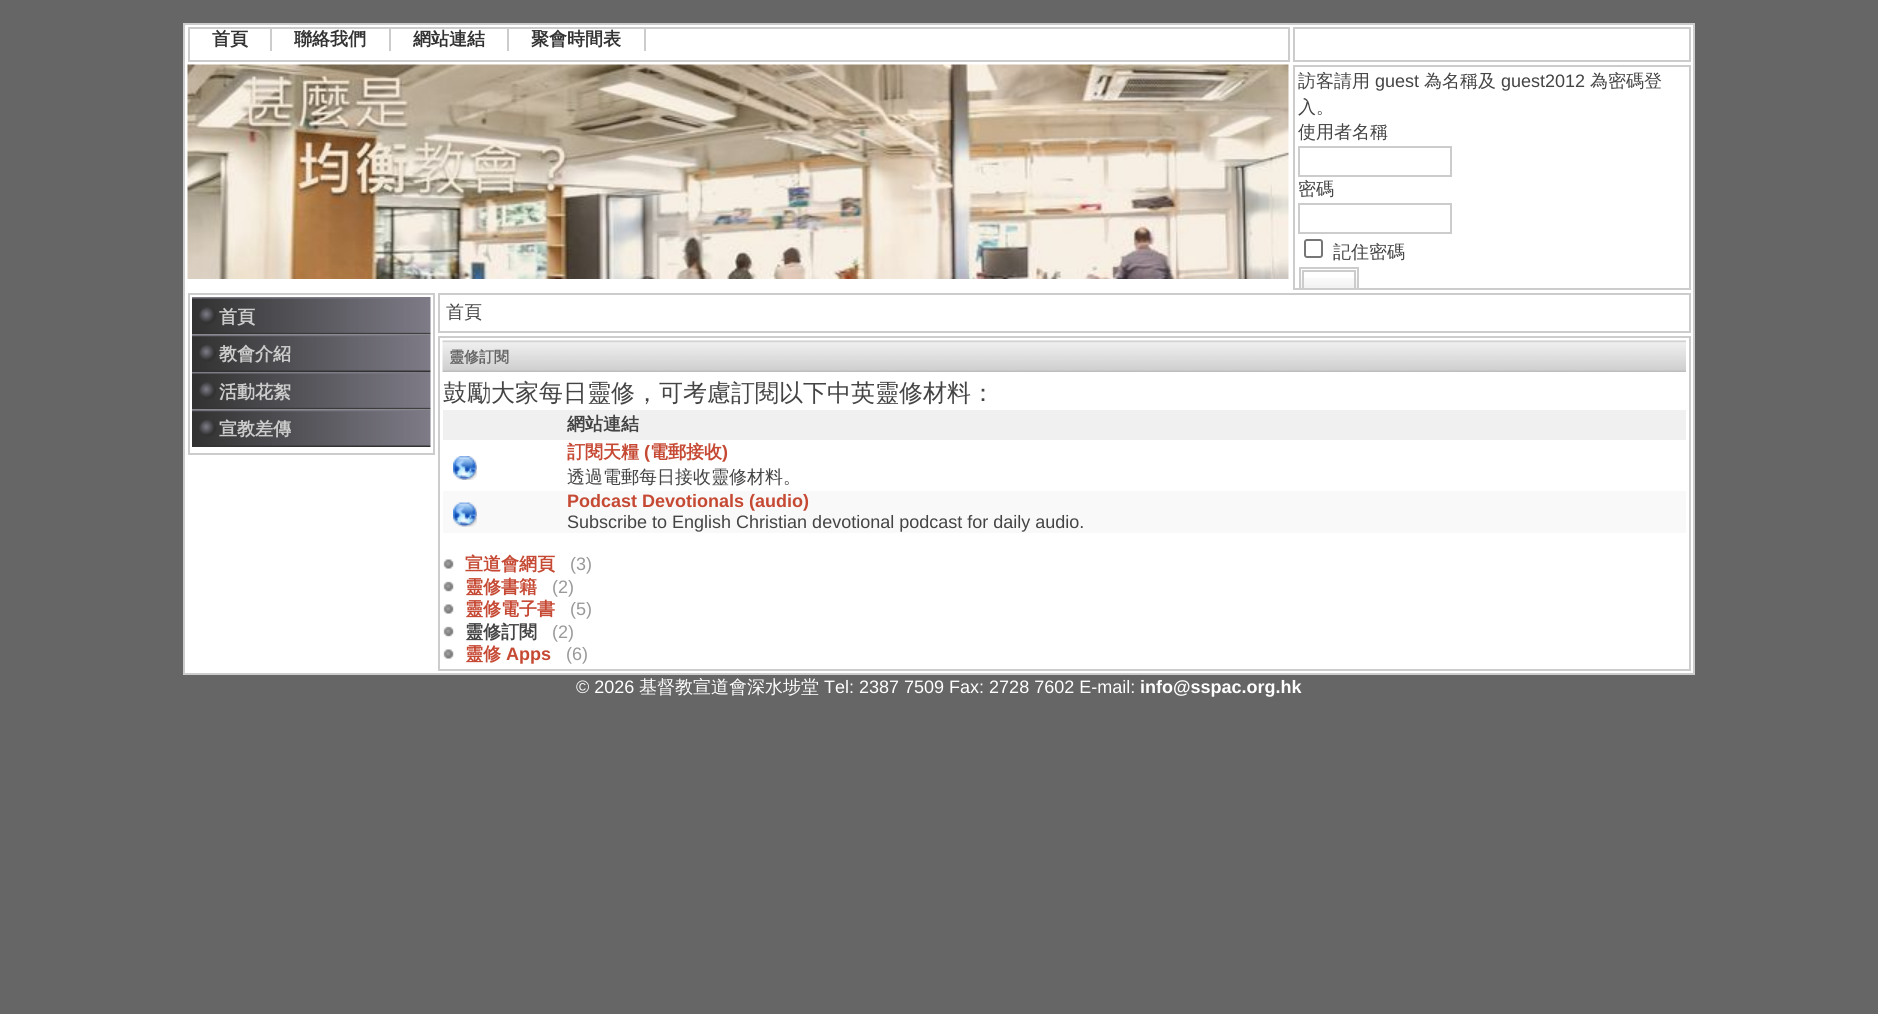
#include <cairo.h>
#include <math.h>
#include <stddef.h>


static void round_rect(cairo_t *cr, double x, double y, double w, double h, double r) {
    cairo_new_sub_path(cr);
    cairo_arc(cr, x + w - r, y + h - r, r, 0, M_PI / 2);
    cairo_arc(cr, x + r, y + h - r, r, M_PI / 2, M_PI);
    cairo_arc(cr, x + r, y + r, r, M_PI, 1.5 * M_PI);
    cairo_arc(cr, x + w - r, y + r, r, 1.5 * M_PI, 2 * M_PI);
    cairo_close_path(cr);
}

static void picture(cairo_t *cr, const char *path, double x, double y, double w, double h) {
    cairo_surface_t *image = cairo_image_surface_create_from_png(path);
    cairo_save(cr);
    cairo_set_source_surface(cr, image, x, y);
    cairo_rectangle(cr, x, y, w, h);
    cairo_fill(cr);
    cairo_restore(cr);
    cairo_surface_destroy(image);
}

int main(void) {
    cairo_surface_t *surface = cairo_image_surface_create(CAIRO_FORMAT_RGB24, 1878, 1014);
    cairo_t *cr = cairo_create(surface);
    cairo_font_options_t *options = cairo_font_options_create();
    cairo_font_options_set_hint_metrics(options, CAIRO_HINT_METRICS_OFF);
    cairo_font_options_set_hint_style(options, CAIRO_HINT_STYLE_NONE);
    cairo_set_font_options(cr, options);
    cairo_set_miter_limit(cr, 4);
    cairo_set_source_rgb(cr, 0.4, 0.4, 0.4);
    cairo_paint(cr);
    cairo_set_source_rgb(cr, 1, 1, 1);
    cairo_rectangle(cr, 184, 24, 1510, 650);
    cairo_fill_preserve(cr);
    cairo_set_source_rgb(cr, 0.8, 0.8, 0.8);
    cairo_stroke(cr);
    cairo_rectangle(cr, 189, 28, 1100, 33);
    cairo_stroke(cr);
    cairo_rectangle(cr, 270, 29, 2, 22);
    cairo_fill(cr);
    cairo_select_font_face(cr, "WenQuanYi Zen Hei", CAIRO_FONT_SLANT_NORMAL, CAIRO_FONT_WEIGHT_BOLD);
    cairo_set_font_size(cr, 18);
    cairo_set_source_rgb(cr, 0.2, 0.2, 0.2);
    cairo_move_to(cr, 212, 45);
    cairo_show_text(cr, "首頁");
    cairo_set_source_rgb(cr, 0.8, 0.8, 0.8);
    cairo_rectangle(cr, 389, 29, 2, 22);
    cairo_fill(cr);
    cairo_set_source_rgb(cr, 0.2, 0.2, 0.2);
    cairo_move_to(cr, 294, 45);
    cairo_show_text(cr, "聯絡我們");
    cairo_set_source_rgb(cr, 0.8, 0.8, 0.8);
    cairo_rectangle(cr, 507, 29, 2, 22);
    cairo_fill(cr);
    cairo_set_source_rgb(cr, 0.2, 0.2, 0.2);
    cairo_move_to(cr, 413, 45);
    cairo_show_text(cr, "網站連結");
    cairo_set_source_rgb(cr, 0.8, 0.8, 0.8);
    cairo_rectangle(cr, 644, 29, 2, 22);
    cairo_fill(cr);
    cairo_set_source_rgb(cr, 0.2, 0.2, 0.2);
    cairo_move_to(cr, 531, 45);
    cairo_show_text(cr, "聚會時間表");
    cairo_rectangle(cr, 1294, 28, 396, 33);
    cairo_set_source_rgb(cr, 0.8, 0.8, 0.8);
    cairo_stroke(cr);
    picture(cr, "img1.png", 187, 64, 1102, 215);
    cairo_rectangle(cr, 1294, 66, 396, 223);
    cairo_stroke(cr);
    cairo_select_font_face(cr, "WenQuanYi Zen Hei Medium", CAIRO_FONT_SLANT_NORMAL, CAIRO_FONT_WEIGHT_NORMAL);
    cairo_set_source_rgb(cr, 0.267, 0.267, 0.267);
    cairo_move_to(cr, 1298, 87);
    cairo_show_text(cr, "訪客請用");
    cairo_select_font_face(cr, "Liberation Sans", CAIRO_FONT_SLANT_NORMAL, CAIRO_FONT_WEIGHT_NORMAL);
    cairo_move_to(cr, 1375, 87);
    cairo_show_text(cr, "guest");
    cairo_select_font_face(cr, "WenQuanYi Zen Hei Medium", CAIRO_FONT_SLANT_NORMAL, CAIRO_FONT_WEIGHT_NORMAL);
    cairo_move_to(cr, 1424, 87);
    cairo_show_text(cr, "為名稱及");
    cairo_select_font_face(cr, "Liberation Sans", CAIRO_FONT_SLANT_NORMAL, CAIRO_FONT_WEIGHT_NORMAL);
    cairo_move_to(cr, 1501, 87);
    cairo_show_text(cr, "guest2012");
    cairo_select_font_face(cr, "WenQuanYi Zen Hei Medium", CAIRO_FONT_SLANT_NORMAL, CAIRO_FONT_WEIGHT_NORMAL);
    cairo_move_to(cr, 1590, 87);
    cairo_show_text(cr, "為密碼登");
    cairo_move_to(cr, 1298, 113);
    cairo_show_text(cr, "入。");
    cairo_move_to(cr, 1298, 138);
    cairo_show_text(cr, "使用者名稱");
    cairo_rectangle(cr, 1299, 147, 152, 29);
    cairo_set_source_rgb(cr, 0.8, 0.8, 0.8);
    cairo_stroke(cr);
    cairo_set_source_rgb(cr, 0.267, 0.267, 0.267);
    cairo_move_to(cr, 1298, 195);
    cairo_show_text(cr, "密碼");
    cairo_rectangle(cr, 1299, 204, 152, 29);
    cairo_set_source_rgb(cr, 0.8, 0.8, 0.8);
    cairo_stroke(cr);
    round_rect(cr, 1305, 240, 17, 17, 2);
    cairo_set_source_rgb(cr, 0.463, 0.463, 0.463);
    cairo_stroke(cr);
    cairo_set_source_rgb(cr, 0.267, 0.267, 0.267);
    cairo_move_to(cr, 1333, 258);
    cairo_show_text(cr, "記住密碼");
    picture(cr, "img2.png", 1301, 278, 56, 10);
    cairo_save(cr);
    cairo_rectangle(cr, 1295, 66, 394, 222);
    cairo_clip(cr);
    cairo_rectangle(cr, 1300, 268, 58, 37);
    cairo_set_source_rgb(cr, 0.8, 0.8, 0.8);
    cairo_stroke(cr);
    cairo_rectangle(cr, 1303, 271, 52, 31);
    cairo_stroke(cr);
    cairo_restore(cr);
    cairo_rectangle(cr, 189, 294, 245, 160);
    cairo_set_source_rgb(cr, 0.8, 0.8, 0.8);
    cairo_stroke(cr);
    picture(cr, "img3.png", 192, 297, 239, 38);
    cairo_select_font_face(cr, "WenQuanYi Zen Hei", CAIRO_FONT_SLANT_NORMAL, CAIRO_FONT_WEIGHT_BOLD);
    cairo_move_to(cr, 219, 323);
    cairo_show_text(cr, "首頁");
    picture(cr, "img4.png", 192, 334, 239, 38);
    cairo_move_to(cr, 219, 360);
    cairo_show_text(cr, "教會介紹");
    picture(cr, "img3.png", 192, 372, 239, 38);
    cairo_move_to(cr, 219, 398);
    cairo_show_text(cr, "活動花絮");
    picture(cr, "img4.png", 192, 409, 239, 38);
    cairo_move_to(cr, 219, 435);
    cairo_show_text(cr, "宣教差傳");
    cairo_rectangle(cr, 439, 294, 1251, 38);
    cairo_stroke(cr);
    cairo_select_font_face(cr, "WenQuanYi Zen Hei Medium", CAIRO_FONT_SLANT_NORMAL, CAIRO_FONT_WEIGHT_NORMAL);
    cairo_set_source_rgb(cr, 0.267, 0.267, 0.267);
    cairo_move_to(cr, 446, 318);
    cairo_show_text(cr, "首頁");
    cairo_rectangle(cr, 439, 337, 1251, 333);
    cairo_set_source_rgb(cr, 0.8, 0.8, 0.8);
    cairo_stroke(cr);
    picture(cr, "img5.png", 442, 340, 1244, 32);
    cairo_select_font_face(cr, "WenQuanYi Zen Hei", CAIRO_FONT_SLANT_NORMAL, CAIRO_FONT_WEIGHT_BOLD);
    cairo_set_font_size(cr, 15);
    cairo_set_source_rgb(cr, 0.4, 0.4, 0.4);
    cairo_move_to(cr, 449, 362);
    cairo_show_text(cr, "靈修訂閱");
    cairo_select_font_face(cr, "WenQuanYi Zen Hei Medium", CAIRO_FONT_SLANT_NORMAL, CAIRO_FONT_WEIGHT_NORMAL);
    cairo_set_font_size(cr, 24);
    cairo_set_source_rgb(cr, 0.267, 0.267, 0.267);
    cairo_move_to(cr, 443, 401);
    cairo_show_text(cr, "鼓勵大家每日靈修，可考慮訂閱以下中英靈修材料：");
    cairo_set_source_rgb(cr, 0.941, 0.941, 0.941);
    cairo_rectangle(cr, 443, 410, 1243, 30);
    cairo_fill(cr);
    cairo_select_font_face(cr, "WenQuanYi Zen Hei", CAIRO_FONT_SLANT_NORMAL, CAIRO_FONT_WEIGHT_BOLD);
    cairo_set_font_size(cr, 18);
    cairo_set_source_rgb(cr, 0.267, 0.267, 0.267);
    cairo_move_to(cr, 567, 430);
    cairo_show_text(cr, "網站連結");
    picture(cr, "img6.png", 453, 456, 24, 24);
    cairo_set_source_rgb(cr, 0.776, 0.286, 0.204);
    cairo_move_to(cr, 567, 458);
    cairo_show_text(cr, "訂閱天糧");
    cairo_select_font_face(cr, "Liberation Sans", CAIRO_FONT_SLANT_NORMAL, CAIRO_FONT_WEIGHT_BOLD);
    cairo_move_to(cr, 644, 458);
    cairo_show_text(cr, "(");
    cairo_select_font_face(cr, "WenQuanYi Zen Hei", CAIRO_FONT_SLANT_NORMAL, CAIRO_FONT_WEIGHT_BOLD);
    cairo_move_to(cr, 650, 458);
    cairo_show_text(cr, "電郵接收");
    cairo_select_font_face(cr, "Liberation Sans", CAIRO_FONT_SLANT_NORMAL, CAIRO_FONT_WEIGHT_BOLD);
    cairo_move_to(cr, 722, 458);
    cairo_show_text(cr, ")");
    cairo_select_font_face(cr, "WenQuanYi Zen Hei Medium", CAIRO_FONT_SLANT_NORMAL, CAIRO_FONT_WEIGHT_NORMAL);
    cairo_set_source_rgb(cr, 0.267, 0.267, 0.267);
    cairo_move_to(cr, 567, 483);
    cairo_show_text(cr, "透過電郵每日接收靈修材料。");
    cairo_set_source_rgb(cr, 0.976, 0.976, 0.976);
    cairo_rectangle(cr, 443, 491, 1243, 42);
    cairo_fill(cr);
    picture(cr, "img7.png", 453, 502, 24, 25);
    cairo_select_font_face(cr, "Liberation Sans", CAIRO_FONT_SLANT_NORMAL, CAIRO_FONT_WEIGHT_BOLD);
    cairo_set_source_rgb(cr, 0.776, 0.286, 0.204);
    cairo_move_to(cr, 567, 507);
    cairo_show_text(cr, "Podcast Devotionals (audio)");
    cairo_select_font_face(cr, "Liberation Sans", CAIRO_FONT_SLANT_NORMAL, CAIRO_FONT_WEIGHT_NORMAL);
    cairo_set_source_rgb(cr, 0.267, 0.267, 0.267);
    cairo_move_to(cr, 567, 528);
    cairo_show_text(cr, "Subscribe to English Christian devotional podcast for daily audio.");
    picture(cr, "img8.png", 443, 559, 11, 10);
    cairo_select_font_face(cr, "WenQuanYi Zen Hei", CAIRO_FONT_SLANT_NORMAL, CAIRO_FONT_WEIGHT_BOLD);
    cairo_set_source_rgb(cr, 0.776, 0.286, 0.204);
    cairo_move_to(cr, 465, 570);
    cairo_show_text(cr, "宣道會網頁");
    cairo_select_font_face(cr, "Liberation Sans", CAIRO_FONT_SLANT_NORMAL, CAIRO_FONT_WEIGHT_NORMAL);
    cairo_set_source_rgb(cr, 0.6, 0.6, 0.6);
    cairo_move_to(cr, 570, 570);
    cairo_show_text(cr, "(3)");
    picture(cr, "img9.png", 443, 581, 11, 11);
    cairo_select_font_face(cr, "WenQuanYi Zen Hei", CAIRO_FONT_SLANT_NORMAL, CAIRO_FONT_WEIGHT_BOLD);
    cairo_set_source_rgb(cr, 0.776, 0.286, 0.204);
    cairo_move_to(cr, 465, 593);
    cairo_show_text(cr, "靈修書籍");
    cairo_select_font_face(cr, "Liberation Sans", CAIRO_FONT_SLANT_NORMAL, CAIRO_FONT_WEIGHT_NORMAL);
    cairo_set_source_rgb(cr, 0.6, 0.6, 0.6);
    cairo_move_to(cr, 552, 593);
    cairo_show_text(cr, "(2)");
    picture(cr, "img8.png", 443, 604, 11, 10);
    cairo_select_font_face(cr, "WenQuanYi Zen Hei", CAIRO_FONT_SLANT_NORMAL, CAIRO_FONT_WEIGHT_BOLD);
    cairo_set_source_rgb(cr, 0.776, 0.286, 0.204);
    cairo_move_to(cr, 465, 615);
    cairo_show_text(cr, "靈修電子書");
    cairo_select_font_face(cr, "Liberation Sans", CAIRO_FONT_SLANT_NORMAL, CAIRO_FONT_WEIGHT_NORMAL);
    cairo_set_source_rgb(cr, 0.6, 0.6, 0.6);
    cairo_move_to(cr, 570, 615);
    cairo_show_text(cr, "(5)");
    picture(cr, "img9.png", 443, 626, 11, 11);
    cairo_select_font_face(cr, "WenQuanYi Zen Hei", CAIRO_FONT_SLANT_NORMAL, CAIRO_FONT_WEIGHT_BOLD);
    cairo_set_source_rgb(cr, 0.267, 0.267, 0.267);
    cairo_move_to(cr, 465, 638);
    cairo_show_text(cr, "靈修訂閱");
    cairo_select_font_face(cr, "Liberation Sans", CAIRO_FONT_SLANT_NORMAL, CAIRO_FONT_WEIGHT_NORMAL);
    cairo_set_source_rgb(cr, 0.6, 0.6, 0.6);
    cairo_move_to(cr, 552, 638);
    cairo_show_text(cr, "(2)");
    picture(cr, "img8.png", 443, 649, 11, 10);
    cairo_select_font_face(cr, "WenQuanYi Zen Hei", CAIRO_FONT_SLANT_NORMAL, CAIRO_FONT_WEIGHT_BOLD);
    cairo_set_source_rgb(cr, 0.776, 0.286, 0.204);
    cairo_move_to(cr, 465, 660);
    cairo_show_text(cr, "靈修");
    cairo_select_font_face(cr, "Liberation Sans", CAIRO_FONT_SLANT_NORMAL, CAIRO_FONT_WEIGHT_BOLD);
    cairo_move_to(cr, 506, 660);
    cairo_show_text(cr, "Apps");
    cairo_select_font_face(cr, "Liberation Sans", CAIRO_FONT_SLANT_NORMAL, CAIRO_FONT_WEIGHT_NORMAL);
    cairo_set_source_rgb(cr, 0.6, 0.6, 0.6);
    cairo_move_to(cr, 566, 660);
    cairo_show_text(cr, "(6)");
    cairo_set_source_rgb(cr, 1, 1, 1);
    cairo_move_to(cr, 576, 693);
    cairo_show_text(cr, "© 2026");
    cairo_select_font_face(cr, "WenQuanYi Zen Hei Medium", CAIRO_FONT_SLANT_NORMAL, CAIRO_FONT_WEIGHT_NORMAL);
    cairo_move_to(cr, 639, 693);
    cairo_show_text(cr, "基督教宣道會深水埗堂");
    cairo_select_font_face(cr, "Liberation Sans", CAIRO_FONT_SLANT_NORMAL, CAIRO_FONT_WEIGHT_NORMAL);
    cairo_move_to(cr, 824, 693);
    cairo_show_text(cr, "Tel: 2387 7509 Fax: 2728 7602 E-mail:");
    cairo_select_font_face(cr, "Liberation Sans", CAIRO_FONT_SLANT_NORMAL, CAIRO_FONT_WEIGHT_BOLD);
    cairo_move_to(cr, 1140, 693);
    cairo_show_text(cr, "info@sspac.org.hk");
    cairo_surface_write_to_png(surface, "page.png");
    cairo_font_options_destroy(options);
    cairo_destroy(cr);
    cairo_surface_destroy(surface);
    return 0;
}
